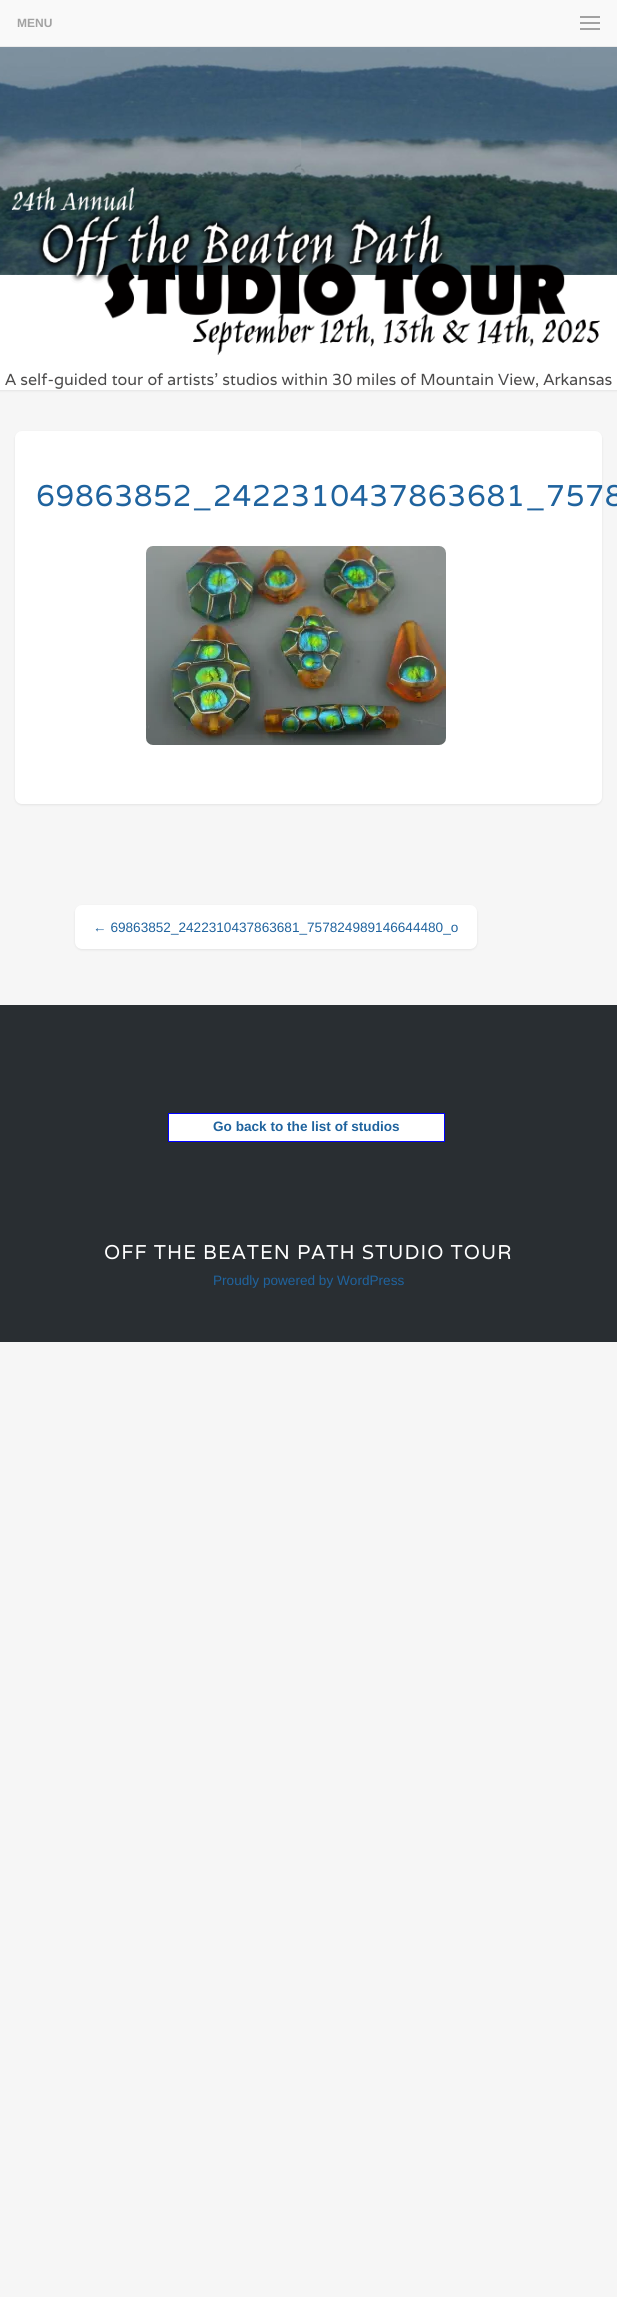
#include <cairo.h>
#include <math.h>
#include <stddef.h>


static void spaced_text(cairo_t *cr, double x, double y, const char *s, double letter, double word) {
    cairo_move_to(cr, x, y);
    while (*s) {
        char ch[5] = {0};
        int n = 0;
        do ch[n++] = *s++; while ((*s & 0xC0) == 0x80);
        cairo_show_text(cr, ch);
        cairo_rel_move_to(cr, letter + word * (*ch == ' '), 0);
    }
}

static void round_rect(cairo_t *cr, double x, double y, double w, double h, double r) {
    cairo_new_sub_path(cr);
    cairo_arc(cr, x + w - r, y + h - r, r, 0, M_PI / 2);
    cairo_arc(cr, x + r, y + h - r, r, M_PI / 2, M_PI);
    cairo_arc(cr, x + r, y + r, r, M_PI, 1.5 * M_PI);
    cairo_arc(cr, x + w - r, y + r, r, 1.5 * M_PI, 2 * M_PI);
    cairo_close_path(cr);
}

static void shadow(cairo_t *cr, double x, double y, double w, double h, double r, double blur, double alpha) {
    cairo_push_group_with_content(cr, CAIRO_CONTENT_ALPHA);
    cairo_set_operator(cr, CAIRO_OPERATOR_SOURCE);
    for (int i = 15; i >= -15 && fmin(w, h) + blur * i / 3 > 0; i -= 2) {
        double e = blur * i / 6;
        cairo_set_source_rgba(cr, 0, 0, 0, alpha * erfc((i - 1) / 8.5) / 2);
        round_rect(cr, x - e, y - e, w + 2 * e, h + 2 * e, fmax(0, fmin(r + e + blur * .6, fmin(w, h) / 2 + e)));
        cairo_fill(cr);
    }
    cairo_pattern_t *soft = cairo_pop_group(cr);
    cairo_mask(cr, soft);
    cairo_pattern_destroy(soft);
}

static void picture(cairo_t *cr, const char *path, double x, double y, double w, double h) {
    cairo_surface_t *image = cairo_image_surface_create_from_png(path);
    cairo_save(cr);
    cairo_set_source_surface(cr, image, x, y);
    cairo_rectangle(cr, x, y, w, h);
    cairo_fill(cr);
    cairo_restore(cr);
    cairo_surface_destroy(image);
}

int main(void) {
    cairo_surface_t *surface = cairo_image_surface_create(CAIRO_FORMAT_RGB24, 617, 2297);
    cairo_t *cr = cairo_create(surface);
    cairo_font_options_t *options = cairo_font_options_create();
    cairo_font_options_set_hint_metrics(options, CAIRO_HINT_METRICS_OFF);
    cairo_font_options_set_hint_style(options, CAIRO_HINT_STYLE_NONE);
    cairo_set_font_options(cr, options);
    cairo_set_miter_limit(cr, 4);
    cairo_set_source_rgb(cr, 0.961, 0.961, 0.961);
    cairo_paint(cr);
    cairo_set_source_rgb(cr, 0.196, 0.196, 0.196);
    shadow(cr, 0, 41, 617, 350, 0, 1, 0.1);
    cairo_set_source_rgb(cr, 1, 1, 1);
    cairo_rectangle(cr, 0, 274, 617, 116);
    cairo_fill(cr);
    picture(cr, "img1.png", 0, 47, 617, 228);
    cairo_set_source_rgb(cr, 0.976, 0.976, 0.976);
    cairo_rectangle(cr, 0, 0, 617, 46);
    cairo_fill(cr);
    cairo_set_source_rgb(cr, 0.918, 0.918, 0.918);
    cairo_rectangle(cr, 0, 46, 617, 1);
    cairo_fill(cr);
    cairo_set_source_rgb(cr, 0.635, 0.635, 0.635);
    cairo_rectangle(cr, 580, 16, 20, 2);
    cairo_fill(cr);
    cairo_select_font_face(cr, "Liberation Sans", CAIRO_FONT_SLANT_NORMAL, CAIRO_FONT_WEIGHT_BOLD);
    cairo_set_font_size(cr, 12);
    cairo_move_to(cr, 17, 27);
    cairo_show_text(cr, "MENU");
    cairo_rectangle(cr, 580, 22, 20, 2);
    cairo_fill(cr);
    cairo_rectangle(cr, 580, 28, 20, 2);
    cairo_fill(cr);
    picture(cr, "img2.png", 11, 186, 589, 169);
    cairo_select_font_face(cr, "Varela", CAIRO_FONT_SLANT_NORMAL, CAIRO_FONT_WEIGHT_NORMAL);
    cairo_set_font_size(cr, 16);
    cairo_set_source_rgb(cr, 0.298, 0.294, 0.294);
    cairo_move_to(cr, 5, 385);
    cairo_show_text(cr, "A self-guided tour of artists' studios within 30 miles of Mountain View, Arkansas");
    cairo_set_source_rgb(cr, 0.196, 0.196, 0.196);
    shadow(cr, 15, 432, 587, 373, 7, 1, 0.1);
    cairo_set_source_rgb(cr, 1, 1, 1);
    round_rect(cr, 15, 431, 587, 373, 7);
    cairo_fill(cr);
    cairo_set_font_size(cr, 30);
    cairo_set_source_rgb(cr, 0.122, 0.388, 0.62);
    spaced_text(cr, 36, 506, "69863852_2422310437863681_7578", 0.7, 0);
    picture(cr, "img3.png", 146, 546, 300, 199);
    cairo_set_source_rgb(cr, 0.196, 0.196, 0.196);
    shadow(cr, 75, 906, 402, 44, 7, 1, 0.1);
    cairo_set_source_rgb(cr, 1, 1, 1);
    round_rect(cr, 75, 905, 402, 44, 7);
    cairo_fill(cr);
    cairo_select_font_face(cr, "Liberation Sans", CAIRO_FONT_SLANT_NORMAL, CAIRO_FONT_WEIGHT_NORMAL);
    cairo_set_font_size(cr, 13.6);
    cairo_set_source_rgb(cr, 0.122, 0.388, 0.62);
    cairo_move_to(cr, 93, 932);
    cairo_show_text(cr, "← 69863852_2422310437863681_757824989146644480_o");
    cairo_set_source_rgb(cr, 0.161, 0.18, 0.196);
    cairo_rectangle(cr, 0, 1005, 617, 337);
    cairo_fill(cr);
    cairo_set_source_rgb(cr, 1, 1, 1);
    cairo_rectangle(cr, 168.5, 1113.5, 276, 28);
    cairo_fill_preserve(cr);
    cairo_set_source_rgb(cr, 0, 0, 1);
    cairo_set_line_width(cr, 1);
    cairo_stroke(cr);
    cairo_select_font_face(cr, "Liberation Sans", CAIRO_FONT_SLANT_NORMAL, CAIRO_FONT_WEIGHT_BOLD);
    cairo_set_source_rgb(cr, 0.122, 0.388, 0.62);
    cairo_move_to(cr, 213, 1131);
    cairo_show_text(cr, "Go back to the list of studios");
    cairo_select_font_face(cr, "Varela", CAIRO_FONT_SLANT_NORMAL, CAIRO_FONT_WEIGHT_NORMAL);
    cairo_set_font_size(cr, 20);
    cairo_set_source_rgb(cr, 1, 1, 1);
    spaced_text(cr, 104, 1259, "OFF THE BEATEN PATH STUDIO TOUR", 1, 0);
    cairo_select_font_face(cr, "Liberation Sans", CAIRO_FONT_SLANT_NORMAL, CAIRO_FONT_WEIGHT_NORMAL);
    cairo_set_font_size(cr, 13.6);
    cairo_set_source_rgb(cr, 0.122, 0.388, 0.62);
    cairo_move_to(cr, 213, 1285);
    cairo_show_text(cr, "Proudly powered by WordPress");
    cairo_surface_write_to_png(surface, "page.png");
    cairo_font_options_destroy(options);
    cairo_destroy(cr);
    cairo_surface_destroy(surface);
    return 0;
}
